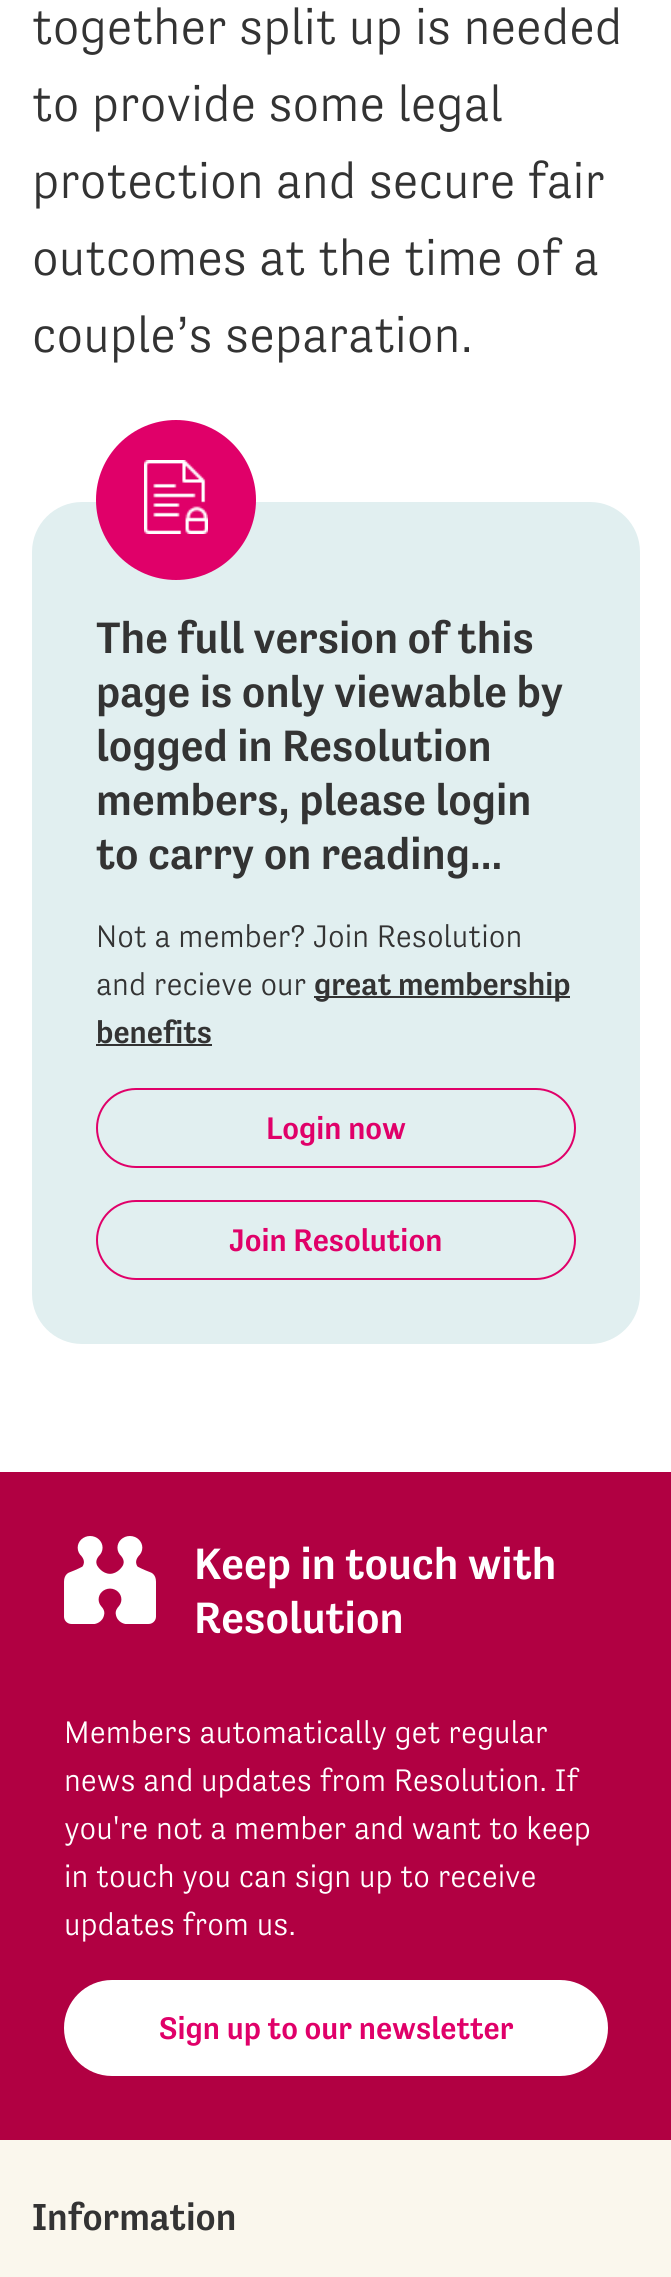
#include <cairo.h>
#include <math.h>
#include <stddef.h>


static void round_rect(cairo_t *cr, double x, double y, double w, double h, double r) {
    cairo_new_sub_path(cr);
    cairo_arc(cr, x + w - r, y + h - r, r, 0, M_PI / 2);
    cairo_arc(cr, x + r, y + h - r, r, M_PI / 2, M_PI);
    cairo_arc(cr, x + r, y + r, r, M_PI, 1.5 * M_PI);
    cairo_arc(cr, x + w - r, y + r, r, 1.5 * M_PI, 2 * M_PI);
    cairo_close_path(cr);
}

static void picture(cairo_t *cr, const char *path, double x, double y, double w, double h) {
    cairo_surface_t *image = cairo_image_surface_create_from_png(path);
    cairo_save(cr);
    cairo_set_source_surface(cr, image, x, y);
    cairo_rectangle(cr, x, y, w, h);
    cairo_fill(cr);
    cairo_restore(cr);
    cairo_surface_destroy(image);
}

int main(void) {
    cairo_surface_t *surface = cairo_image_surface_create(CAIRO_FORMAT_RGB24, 671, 2277);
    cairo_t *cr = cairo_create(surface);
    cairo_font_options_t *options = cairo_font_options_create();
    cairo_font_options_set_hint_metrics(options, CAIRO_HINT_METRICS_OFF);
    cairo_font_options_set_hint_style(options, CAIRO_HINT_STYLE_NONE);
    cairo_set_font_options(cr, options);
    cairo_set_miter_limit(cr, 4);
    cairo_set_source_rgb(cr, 1, 1, 1);
    cairo_paint(cr);
    cairo_select_font_face(cr, "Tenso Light", CAIRO_FONT_SLANT_NORMAL, CAIRO_FONT_WEIGHT_NORMAL);
    cairo_set_font_size(cr, 51.25);
    cairo_set_source_rgb(cr, 0.2, 0.2, 0.2);
    cairo_move_to(cr, 32, 44);
    cairo_show_text(cr, "together split up is needed");
    cairo_move_to(cr, 32, 121);
    cairo_show_text(cr, "to provide some legal");
    cairo_move_to(cr, 32, 198);
    cairo_show_text(cr, "protection and secure fair");
    cairo_move_to(cr, 32, 275);
    cairo_show_text(cr, "outcomes at the time of a");
    cairo_move_to(cr, 32, 352);
    cairo_show_text(cr, "couple’s separation.");
    cairo_set_source_rgb(cr, 0.882, 0.937, 0.941);
    round_rect(cr, 32, 502, 608, 842, 50);
    cairo_fill(cr);
    cairo_set_source_rgb(cr, 0.878, 0, 0.412);
    cairo_arc(cr, 176, 500, 80, 0, 2 * M_PI);
    cairo_fill(cr);
    picture(cr, "img1.png", 144, 460, 64, 74);
    cairo_select_font_face(cr, "Tenso Medium", CAIRO_FONT_SLANT_NORMAL, CAIRO_FONT_WEIGHT_NORMAL);
    cairo_set_font_size(cr, 45);
    cairo_set_source_rgb(cr, 0.2, 0.2, 0.2);
    cairo_move_to(cr, 96, 653);
    cairo_show_text(cr, "The full version of this");
    cairo_move_to(cr, 96, 707);
    cairo_show_text(cr, "page is only viewable by");
    cairo_move_to(cr, 96, 761);
    cairo_show_text(cr, "logged in Resolution");
    cairo_move_to(cr, 96, 815);
    cairo_show_text(cr, "members, please login");
    cairo_move_to(cr, 96, 869);
    cairo_show_text(cr, "to carry on reading...");
    cairo_select_font_face(cr, "Tenso Light", CAIRO_FONT_SLANT_NORMAL, CAIRO_FONT_WEIGHT_NORMAL);
    cairo_set_font_size(cr, 32);
    cairo_move_to(cr, 96, 947);
    cairo_show_text(cr, "Not a member? Join Resolution");
    cairo_move_to(cr, 96, 995);
    cairo_show_text(cr, "and recieve our");
    cairo_rectangle(cr, 314, 996, 256, 2);
    cairo_fill(cr);
    cairo_select_font_face(cr, "Tenso Medium", CAIRO_FONT_SLANT_NORMAL, CAIRO_FONT_WEIGHT_NORMAL);
    cairo_move_to(cr, 314, 995);
    cairo_show_text(cr, "great membership");
    cairo_move_to(cr, 96, 1043);
    cairo_show_text(cr, "benefits");
    cairo_rectangle(cr, 96, 1044, 116, 2);
    cairo_fill(cr);
    round_rect(cr, 97, 1089, 478, 78, 39);
    cairo_set_source_rgb(cr, 0.878, 0, 0.412);
    cairo_stroke(cr);
    cairo_move_to(cr, 266, 1139);
    cairo_show_text(cr, "Login now");
    round_rect(cr, 97, 1201, 478, 78, 39);
    cairo_stroke(cr);
    cairo_move_to(cr, 229, 1251);
    cairo_show_text(cr, "Join Resolution");
    cairo_set_source_rgb(cr, 0.694, 0, 0.259);
    cairo_rectangle(cr, 0, 1472, 671, 668);
    cairo_fill(cr);
    picture(cr, "img2.png", 64, 1536, 92, 88);
    cairo_set_font_size(cr, 45);
    cairo_set_source_rgb(cr, 1, 1, 1);
    cairo_move_to(cr, 194, 1579);
    cairo_show_text(cr, "Keep in touch with");
    cairo_move_to(cr, 194, 1633);
    cairo_show_text(cr, "Resolution");
    cairo_select_font_face(cr, "Tenso Light", CAIRO_FONT_SLANT_NORMAL, CAIRO_FONT_WEIGHT_NORMAL);
    cairo_set_font_size(cr, 32);
    cairo_move_to(cr, 64, 1743);
    cairo_show_text(cr, "Members automatically get regular");
    cairo_move_to(cr, 64, 1791);
    cairo_show_text(cr, "news and updates from Resolution. If");
    cairo_move_to(cr, 64, 1839);
    cairo_show_text(cr, "you're not a member and want to keep");
    cairo_move_to(cr, 64, 1887);
    cairo_show_text(cr, "in touch you can sign up to receive");
    cairo_move_to(cr, 64, 1935);
    cairo_show_text(cr, "updates from us.");
    round_rect(cr, 64, 1980, 544, 96, 48);
    cairo_fill(cr);
    cairo_select_font_face(cr, "Tenso Medium", CAIRO_FONT_SLANT_NORMAL, CAIRO_FONT_WEIGHT_NORMAL);
    cairo_set_source_rgb(cr, 0.878, 0, 0.412);
    cairo_move_to(cr, 159, 2039);
    cairo_show_text(cr, "Sign up to our newsletter");
    cairo_set_source_rgb(cr, 0.98, 0.965, 0.929);
    cairo_rectangle(cr, 0, 2140, 671, 137);
    cairo_fill(cr);
    cairo_set_font_size(cr, 38.5);
    cairo_set_source_rgb(cr, 0.2, 0.2, 0.2);
    cairo_move_to(cr, 32, 2230);
    cairo_show_text(cr, "Information");
    cairo_surface_write_to_png(surface, "page.png");
    cairo_font_options_destroy(options);
    cairo_destroy(cr);
    cairo_surface_destroy(surface);
    return 0;
}
